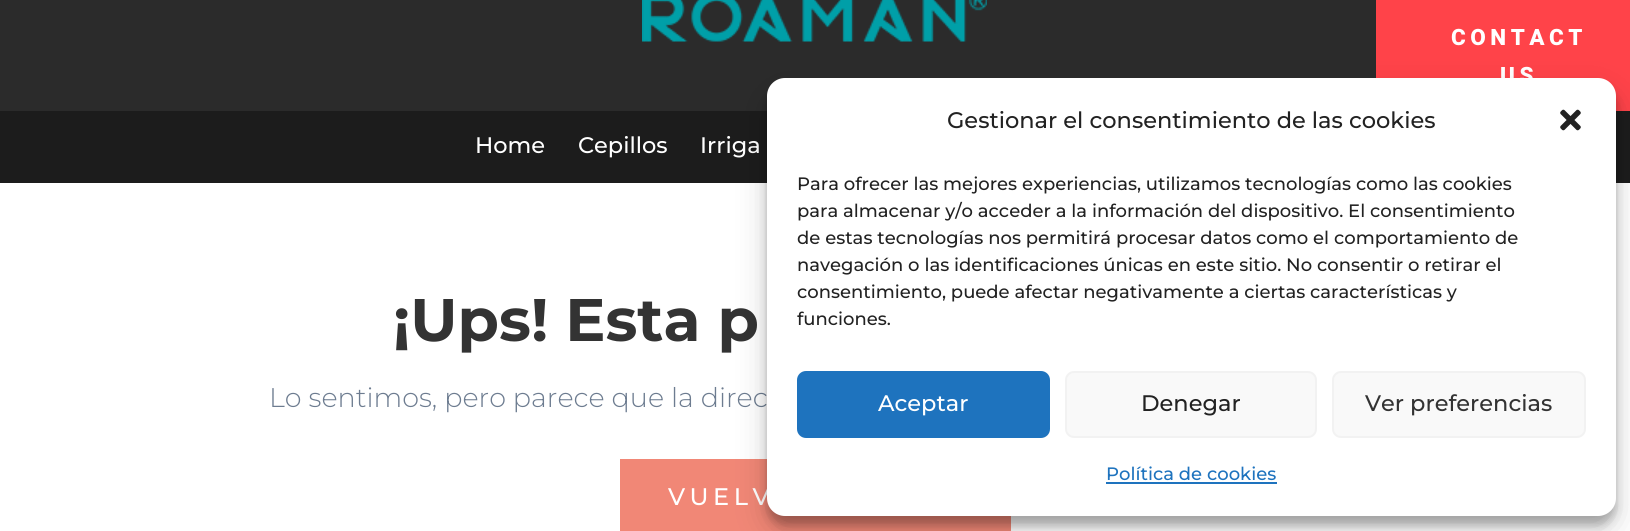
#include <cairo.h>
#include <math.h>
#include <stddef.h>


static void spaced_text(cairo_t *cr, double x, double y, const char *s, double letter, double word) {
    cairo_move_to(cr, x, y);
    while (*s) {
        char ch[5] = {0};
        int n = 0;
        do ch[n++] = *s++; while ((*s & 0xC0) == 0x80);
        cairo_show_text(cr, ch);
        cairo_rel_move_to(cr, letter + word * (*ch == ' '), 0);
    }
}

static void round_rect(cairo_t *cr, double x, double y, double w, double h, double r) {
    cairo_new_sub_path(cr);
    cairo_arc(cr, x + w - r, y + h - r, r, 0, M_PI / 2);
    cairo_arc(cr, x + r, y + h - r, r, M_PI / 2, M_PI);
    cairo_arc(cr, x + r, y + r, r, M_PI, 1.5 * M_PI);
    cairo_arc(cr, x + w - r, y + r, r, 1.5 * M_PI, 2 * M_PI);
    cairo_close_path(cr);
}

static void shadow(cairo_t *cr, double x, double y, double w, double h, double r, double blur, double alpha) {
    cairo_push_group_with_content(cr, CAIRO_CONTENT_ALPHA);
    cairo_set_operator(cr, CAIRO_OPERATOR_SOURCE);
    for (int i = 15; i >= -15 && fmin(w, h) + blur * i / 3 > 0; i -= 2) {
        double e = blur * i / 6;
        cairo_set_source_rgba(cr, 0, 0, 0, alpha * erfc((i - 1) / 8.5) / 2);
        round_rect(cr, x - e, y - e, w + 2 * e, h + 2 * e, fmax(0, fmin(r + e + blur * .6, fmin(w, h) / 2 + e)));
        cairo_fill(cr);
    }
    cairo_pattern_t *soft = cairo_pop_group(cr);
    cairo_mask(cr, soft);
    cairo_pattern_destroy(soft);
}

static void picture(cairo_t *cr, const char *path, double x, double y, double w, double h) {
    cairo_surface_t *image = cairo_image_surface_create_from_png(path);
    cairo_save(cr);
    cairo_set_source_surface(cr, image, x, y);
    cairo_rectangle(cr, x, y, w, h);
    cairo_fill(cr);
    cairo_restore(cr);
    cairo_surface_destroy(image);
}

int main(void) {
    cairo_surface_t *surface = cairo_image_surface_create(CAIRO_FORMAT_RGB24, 1630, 531);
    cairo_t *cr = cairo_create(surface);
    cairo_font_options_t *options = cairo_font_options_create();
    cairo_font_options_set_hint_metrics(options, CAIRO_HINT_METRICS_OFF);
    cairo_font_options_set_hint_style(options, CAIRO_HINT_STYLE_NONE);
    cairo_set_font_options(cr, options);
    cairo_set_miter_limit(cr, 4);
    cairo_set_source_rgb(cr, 1, 1, 1);
    cairo_paint(cr);
    cairo_set_source_rgb(cr, 0.169, 0.169, 0.169);
    cairo_rectangle(cr, 0, 0, 1376, 111);
    cairo_fill(cr);
    picture(cr, "img1.png", 642, 0, 345, 42);
    cairo_set_source_rgb(cr, 1, 0.263, 0.286);
    cairo_rectangle(cr, 1376, 0, 254, 111);
    cairo_fill(cr);
    cairo_select_font_face(cr, "Heebo ExtraBold", CAIRO_FONT_SLANT_NORMAL, CAIRO_FONT_WEIGHT_NORMAL);
    cairo_set_font_size(cr, 22.5);
    cairo_set_source_rgb(cr, 1, 1, 1);
    spaced_text(cr, 1451, 45, "CONTACT", 4.5, 0);
    spaced_text(cr, 1500, 83, "US", 4.5, 0);
    cairo_set_source_rgb(cr, 0.11, 0.11, 0.11);
    cairo_rectangle(cr, 0, 111, 1630, 72);
    cairo_fill(cr);
    cairo_select_font_face(cr, "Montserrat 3 Thin", CAIRO_FONT_SLANT_NORMAL, CAIRO_FONT_WEIGHT_NORMAL);
    cairo_set_source_rgb(cr, 1, 1, 1);
    cairo_move_to(cr, 475, 153);
    cairo_show_text(cr, "Home");
    cairo_move_to(cr, 578, 153);
    cairo_show_text(cr, "Cepillos");
    cairo_move_to(cr, 700, 153);
    cairo_show_text(cr, "Irriga");
    cairo_select_font_face(cr, "Montserrat Thin", CAIRO_FONT_SLANT_NORMAL, CAIRO_FONT_WEIGHT_NORMAL);
    cairo_set_font_size(cr, 60);
    cairo_set_source_rgb(cr, 0.2, 0.2, 0.2);
    cairo_move_to(cr, 393, 341);
    cairo_show_text(cr, "¡Ups! Esta p");
    cairo_select_font_face(cr, "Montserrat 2 Thin", CAIRO_FONT_SLANT_NORMAL, CAIRO_FONT_WEIGHT_NORMAL);
    cairo_set_font_size(cr, 27);
    cairo_set_source_rgb(cr, 0.427, 0.486, 0.565);
    cairo_move_to(cr, 269, 407);
    cairo_show_text(cr, "Lo sentimos, pero parece que la direc");
    cairo_set_source_rgb(cr, 0.945, 0.529, 0.463);
    cairo_rectangle(cr, 620, 459, 391, 72);
    cairo_fill(cr);
    cairo_select_font_face(cr, "Montserrat 3 Thin", CAIRO_FONT_SLANT_NORMAL, CAIRO_FONT_WEIGHT_NORMAL);
    cairo_set_font_size(cr, 24);
    cairo_set_source_rgb(cr, 1, 1, 1);
    spaced_text(cr, 668, 505, "VUELV", 4.5, 0);
    cairo_set_source_rgb(cr, 0, 0, 0);
    shadow(cr, 767, 87, 849, 438, 18, 4.5, 0.23);
    shadow(cr, 767, 93, 849, 438, 18, 15, 0.19);
    cairo_set_source_rgb(cr, 1, 1, 1);
    round_rect(cr, 767, 78, 849, 438, 18);
    cairo_fill(cr);
    cairo_set_font_size(cr, 22.5);
    cairo_set_source_rgb(cr, 0.133, 0.133, 0.133);
    cairo_move_to(cr, 947, 128);
    cairo_show_text(cr, "Gestionar el consentimiento de las cookies");
    picture(cr, "img2.png", 1560, 109, 21, 22);
    cairo_set_font_size(cr, 18);
    cairo_move_to(cr, 797, 190);
    cairo_show_text(cr, "Para ofrecer las mejores experiencias, utilizamos tecnologías como las cookies");
    cairo_move_to(cr, 797, 217);
    cairo_show_text(cr, "para almacenar y/o acceder a la información del dispositivo. El consentimiento");
    cairo_move_to(cr, 797, 244);
    cairo_show_text(cr, "de estas tecnologías nos permitirá procesar datos como el comportamiento de");
    cairo_move_to(cr, 797, 271);
    cairo_show_text(cr, "navegación o las identificaciones únicas en este sitio. No consentir o retirar el");
    cairo_move_to(cr, 797, 298);
    cairo_show_text(cr, "consentimiento, puede afectar negativamente a ciertas características y");
    cairo_move_to(cr, 797, 325);
    cairo_show_text(cr, "funciones.");
    cairo_set_source_rgb(cr, 0.118, 0.451, 0.745);
    round_rect(cr, 798, 372, 251, 65, 8);
    cairo_fill_preserve(cr);
    cairo_stroke(cr);
    cairo_set_font_size(cr, 22.5);
    cairo_set_source_rgb(cr, 1, 1, 1);
    cairo_move_to(cr, 878, 411);
    cairo_show_text(cr, "Aceptar");
    cairo_set_source_rgb(cr, 0.976, 0.976, 0.976);
    round_rect(cr, 1066, 372, 250, 65, 8);
    cairo_fill_preserve(cr);
    cairo_set_source_rgb(cr, 0.949, 0.949, 0.949);
    cairo_stroke(cr);
    cairo_set_source_rgb(cr, 0.133, 0.133, 0.133);
    cairo_move_to(cr, 1141, 411);
    cairo_show_text(cr, "Denegar");
    cairo_set_source_rgb(cr, 0.976, 0.976, 0.976);
    round_rect(cr, 1333, 372, 252, 65, 8);
    cairo_fill_preserve(cr);
    cairo_set_source_rgb(cr, 0.949, 0.949, 0.949);
    cairo_stroke(cr);
    cairo_set_source_rgb(cr, 0.2, 0.2, 0.2);
    cairo_move_to(cr, 1365, 411);
    cairo_show_text(cr, "Ver preferencias");
    cairo_set_font_size(cr, 18);
    cairo_set_source_rgb(cr, 0.118, 0.451, 0.745);
    cairo_move_to(cr, 1106, 480);
    cairo_show_text(cr, "Política de cookies");
    cairo_rectangle(cr, 1106, 482, 171, 2);
    cairo_fill(cr);
    cairo_surface_write_to_png(surface, "page.png");
    cairo_font_options_destroy(options);
    cairo_destroy(cr);
    cairo_surface_destroy(surface);
    return 0;
}
